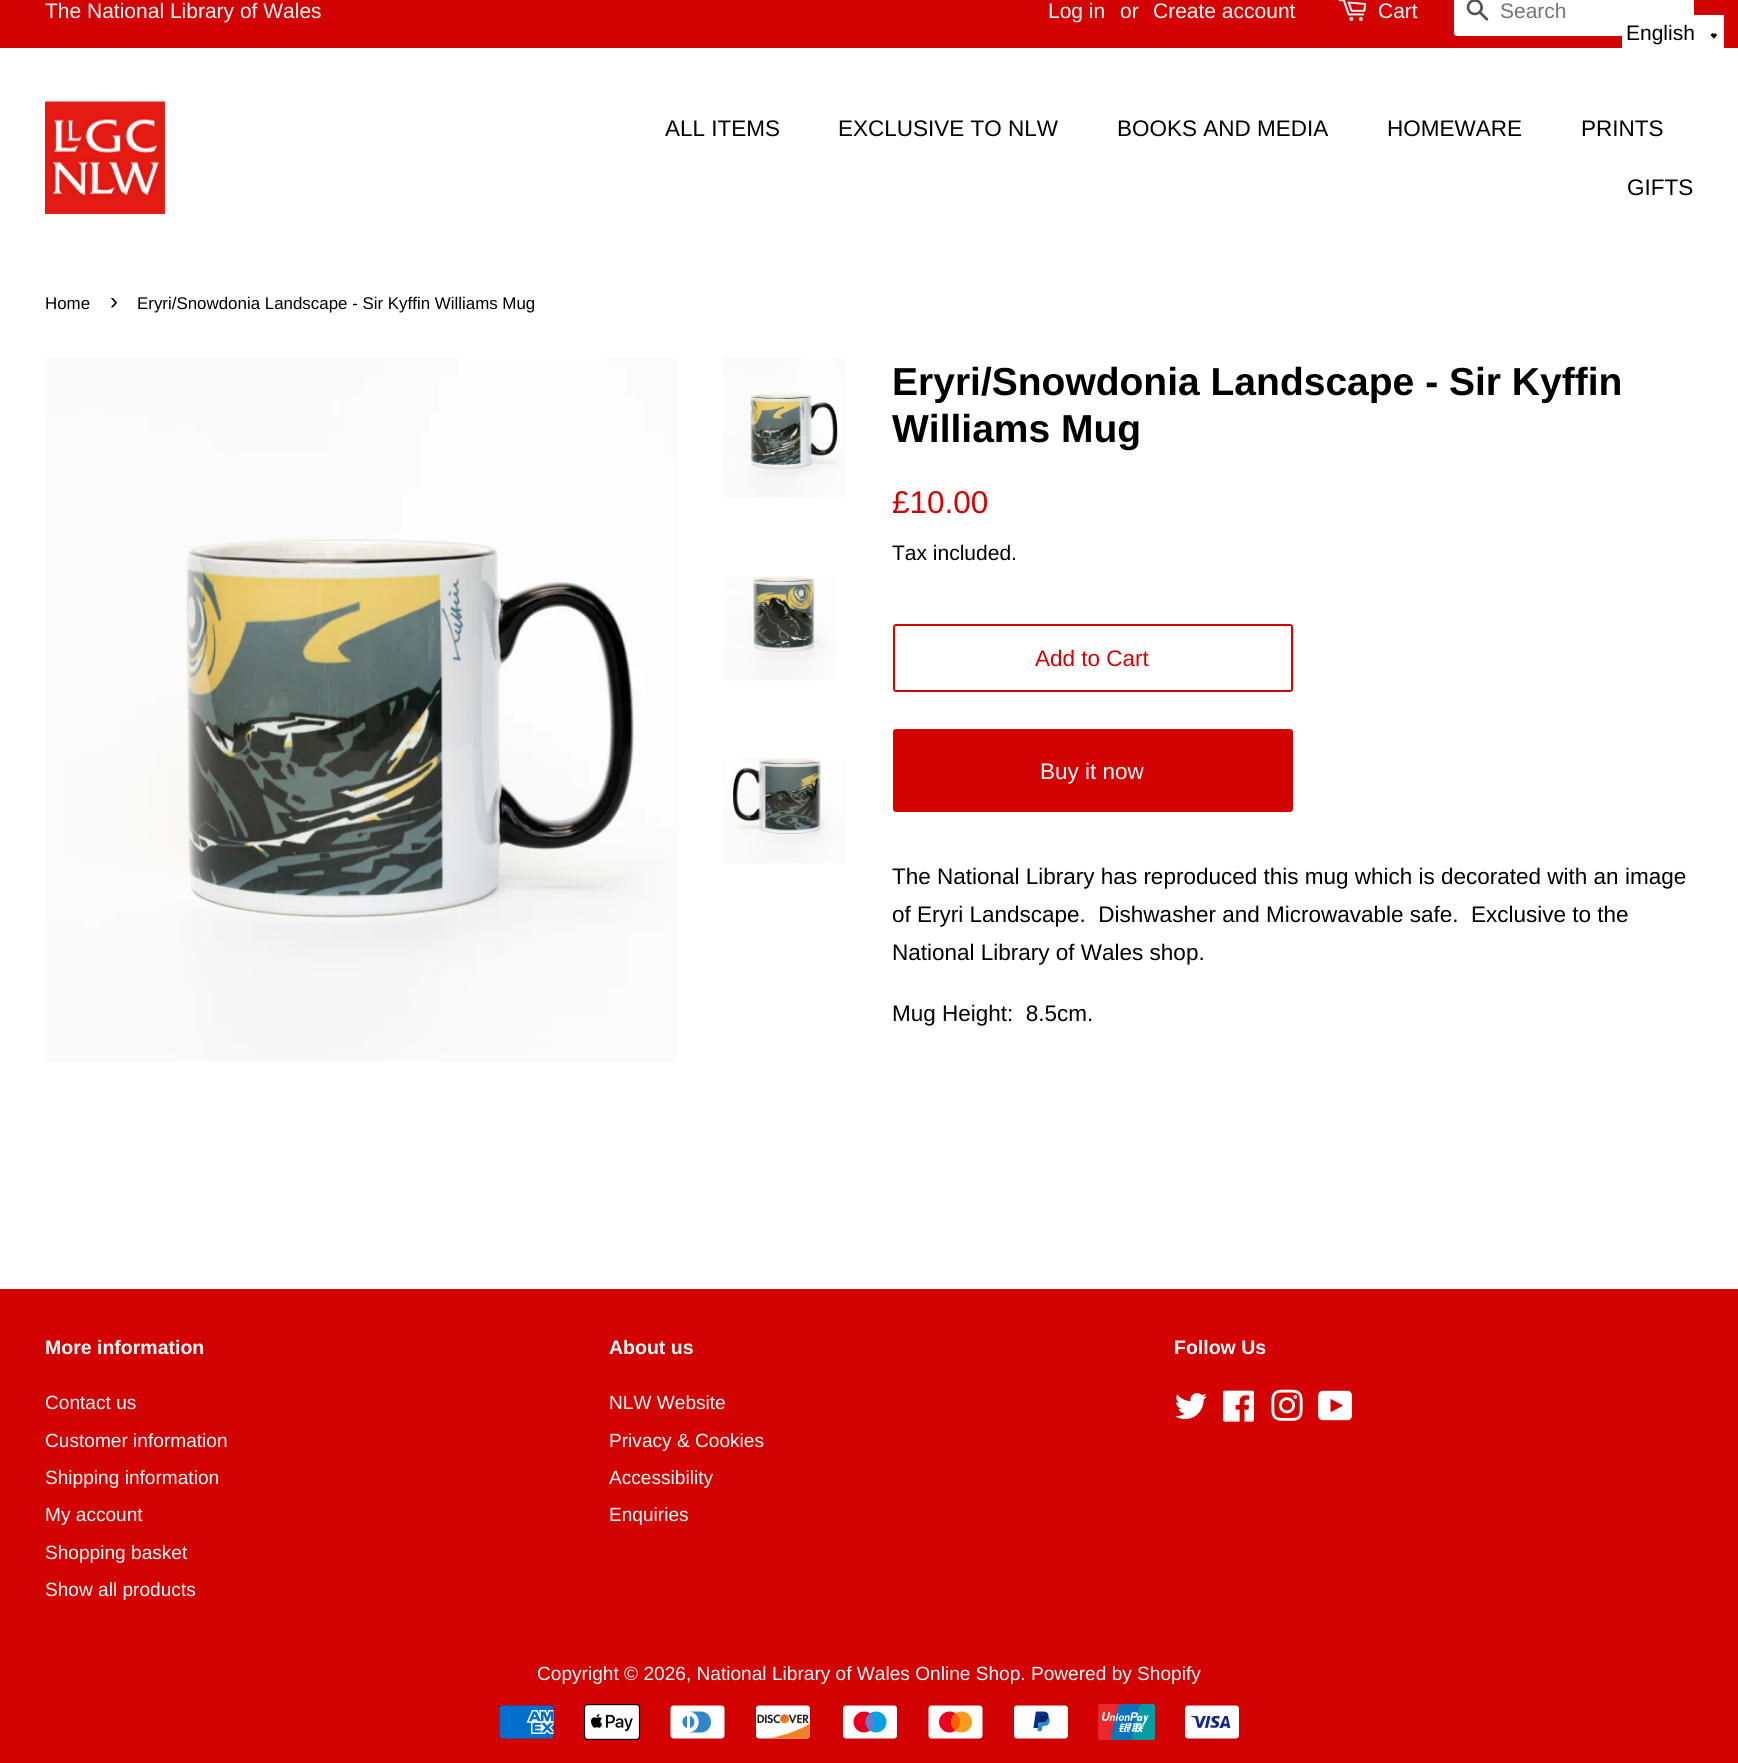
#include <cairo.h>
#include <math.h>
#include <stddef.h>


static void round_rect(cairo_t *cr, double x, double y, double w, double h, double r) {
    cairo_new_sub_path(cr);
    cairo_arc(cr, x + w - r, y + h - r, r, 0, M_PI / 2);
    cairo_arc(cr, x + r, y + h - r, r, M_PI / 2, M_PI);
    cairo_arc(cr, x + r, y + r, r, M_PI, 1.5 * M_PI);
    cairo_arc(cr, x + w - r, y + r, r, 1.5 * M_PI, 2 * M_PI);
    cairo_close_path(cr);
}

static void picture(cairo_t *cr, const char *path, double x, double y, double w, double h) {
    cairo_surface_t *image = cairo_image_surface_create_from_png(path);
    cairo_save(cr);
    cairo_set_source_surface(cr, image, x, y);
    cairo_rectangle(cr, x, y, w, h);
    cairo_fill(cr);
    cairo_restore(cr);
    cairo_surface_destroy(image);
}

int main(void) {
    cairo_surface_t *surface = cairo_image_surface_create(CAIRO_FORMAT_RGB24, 1738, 1763);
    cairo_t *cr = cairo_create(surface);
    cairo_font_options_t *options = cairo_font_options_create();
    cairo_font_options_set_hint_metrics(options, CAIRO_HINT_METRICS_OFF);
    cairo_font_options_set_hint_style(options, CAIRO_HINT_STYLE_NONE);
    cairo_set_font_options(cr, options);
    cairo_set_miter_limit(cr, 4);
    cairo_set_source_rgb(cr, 1, 1, 1);
    cairo_paint(cr);
    cairo_set_source_rgb(cr, 0.831, 0.012, 0.012);
    cairo_rectangle(cr, 0, 0, 1738, 48);
    cairo_fill(cr);
    cairo_select_font_face(cr, "Liberation Sans", CAIRO_FONT_SLANT_NORMAL, CAIRO_FONT_WEIGHT_NORMAL);
    cairo_set_font_size(cr, 21);
    cairo_set_source_rgb(cr, 1, 1, 1);
    cairo_move_to(cr, 45, 18);
    cairo_show_text(cr, "The National Library of Wales");
    cairo_move_to(cr, 1048, 18);
    cairo_show_text(cr, "Log in");
    cairo_move_to(cr, 1120, 18);
    cairo_show_text(cr, "or");
    cairo_move_to(cr, 1153, 18);
    cairo_show_text(cr, "Create account");
    picture(cr, "img1.png", 1338, 0, 29, 21);
    cairo_move_to(cr, 1378, 18);
    cairo_show_text(cr, "Cart");
    round_rect(cr, 1454, -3, 240, 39, 3);
    cairo_fill(cr);
    picture(cr, "img2.png", 1466, 0, 23, 21);
    cairo_set_source_rgb(cr, 0.459, 0.459, 0.459);
    cairo_move_to(cr, 1500, 18);
    cairo_show_text(cr, "Search");
    picture(cr, "img3.png", 45, 101, 120, 113);
    cairo_set_font_size(cr, 22.5);
    cairo_set_source_rgb(cr, 0, 0, 0);
    cairo_move_to(cr, 665, 136);
    cairo_show_text(cr, "ALL ITEMS");
    cairo_move_to(cr, 838, 136);
    cairo_show_text(cr, "EXCLUSIVE TO NLW");
    cairo_move_to(cr, 1117, 136);
    cairo_show_text(cr, "BOOKS AND MEDIA");
    cairo_move_to(cr, 1387, 136);
    cairo_show_text(cr, "HOMEWARE");
    cairo_move_to(cr, 1581, 136);
    cairo_show_text(cr, "PRINTS");
    cairo_move_to(cr, 1627, 195);
    cairo_show_text(cr, "GIFTS");
    cairo_set_source_rgb(cr, 1, 1, 1);
    cairo_rectangle(cr, 1622, 15, 102, 33);
    cairo_fill(cr);
    cairo_set_font_size(cr, 21);
    cairo_set_source_rgb(cr, 0, 0, 0);
    cairo_move_to(cr, 1626, 40);
    cairo_show_text(cr, "English");
    cairo_new_path(cr);
    cairo_move_to(cr, 1711.5, 34);
    cairo_line_to(cr, 1714, 36.5);
    cairo_line_to(cr, 1716, 34);
    cairo_set_line_width(cr, 3);
    cairo_stroke(cr);
    cairo_set_font_size(cr, 16.9);
    cairo_move_to(cr, 45, 309);
    cairo_show_text(cr, "Home");
    cairo_set_font_size(cr, 24);
    cairo_move_to(cr, 110, 309);
    cairo_show_text(cr, "›");
    cairo_set_font_size(cr, 16.9);
    cairo_move_to(cr, 137, 309);
    cairo_show_text(cr, "Eryri/Snowdonia Landscape - Sir Kyffin Williams Mug");
    picture(cr, "img4.png", 45, 358, 633, 704);
    picture(cr, "img5.png", 723, 358, 123, 140);
    picture(cr, "img6.png", 723, 576, 113, 105);
    picture(cr, "img7.png", 723, 758, 123, 106);
    cairo_select_font_face(cr, "Liberation Sans", CAIRO_FONT_SLANT_NORMAL, CAIRO_FONT_WEIGHT_BOLD);
    cairo_set_font_size(cr, 39);
    cairo_move_to(cr, 892, 395);
    cairo_show_text(cr, "Eryri/Snowdonia Landscape - Sir Kyffin");
    cairo_move_to(cr, 892, 442);
    cairo_show_text(cr, "Williams Mug");
    cairo_select_font_face(cr, "Liberation Sans", CAIRO_FONT_SLANT_NORMAL, CAIRO_FONT_WEIGHT_NORMAL);
    cairo_set_font_size(cr, 31.5);
    cairo_set_source_rgb(cr, 0.831, 0.012, 0.012);
    cairo_move_to(cr, 892, 513);
    cairo_show_text(cr, "£10.00");
    cairo_set_font_size(cr, 21);
    cairo_set_source_rgb(cr, 0, 0, 0);
    cairo_move_to(cr, 892, 560);
    cairo_show_text(cr, "Tax included.");
    round_rect(cr, 894, 625, 398, 66, 2);
    cairo_set_source_rgb(cr, 0.831, 0.012, 0.012);
    cairo_set_line_width(cr, 2);
    cairo_stroke(cr);
    cairo_set_font_size(cr, 22.5);
    cairo_move_to(cr, 1035, 666);
    cairo_show_text(cr, "Add to Cart");
    round_rect(cr, 893, 729, 400, 83, 3);
    cairo_fill(cr);
    cairo_set_source_rgb(cr, 1, 1, 1);
    cairo_move_to(cr, 1040, 779);
    cairo_show_text(cr, "Buy it now");
    cairo_set_source_rgb(cr, 0, 0, 0);
    cairo_move_to(cr, 892, 884);
    cairo_show_text(cr, "The National Library has reproduced this mug which is decorated with an image");
    cairo_move_to(cr, 892, 922);
    cairo_show_text(cr, "of Eryri Landscape.  Dishwasher and Microwavable safe.  Exclusive to the");
    cairo_move_to(cr, 892, 960);
    cairo_show_text(cr, "National Library of Wales shop.");
    cairo_move_to(cr, 892, 1021);
    cairo_show_text(cr, "Mug Height:  8.5cm.");
    cairo_set_source_rgb(cr, 0.831, 0.012, 0.012);
    cairo_rectangle(cr, 0, 1289, 1738, 474);
    cairo_fill(cr);
    cairo_select_font_face(cr, "Liberation Sans", CAIRO_FONT_SLANT_NORMAL, CAIRO_FONT_WEIGHT_BOLD);
    cairo_set_font_size(cr, 19.5);
    cairo_set_source_rgb(cr, 1, 1, 1);
    cairo_move_to(cr, 45, 1354);
    cairo_show_text(cr, "More information");
    cairo_select_font_face(cr, "Liberation Sans", CAIRO_FONT_SLANT_NORMAL, CAIRO_FONT_WEIGHT_NORMAL);
    cairo_set_font_size(cr, 19.1);
    cairo_move_to(cr, 45, 1409);
    cairo_show_text(cr, "Contact us");
    cairo_move_to(cr, 45, 1447);
    cairo_show_text(cr, "Customer information");
    cairo_move_to(cr, 45, 1484);
    cairo_show_text(cr, "Shipping information");
    cairo_move_to(cr, 45, 1521);
    cairo_show_text(cr, "My account");
    cairo_move_to(cr, 45, 1559);
    cairo_show_text(cr, "Shopping basket");
    cairo_move_to(cr, 45, 1596);
    cairo_show_text(cr, "Show all products");
    cairo_select_font_face(cr, "Liberation Sans", CAIRO_FONT_SLANT_NORMAL, CAIRO_FONT_WEIGHT_BOLD);
    cairo_set_font_size(cr, 19.5);
    cairo_move_to(cr, 609, 1354);
    cairo_show_text(cr, "About us");
    cairo_select_font_face(cr, "Liberation Sans", CAIRO_FONT_SLANT_NORMAL, CAIRO_FONT_WEIGHT_NORMAL);
    cairo_set_font_size(cr, 19.1);
    cairo_move_to(cr, 609, 1409);
    cairo_show_text(cr, "NLW Website");
    cairo_move_to(cr, 609, 1447);
    cairo_show_text(cr, "Privacy & Cookies");
    cairo_move_to(cr, 609, 1484);
    cairo_show_text(cr, "Accessibility");
    cairo_move_to(cr, 609, 1521);
    cairo_show_text(cr, "Enquiries");
    cairo_select_font_face(cr, "Liberation Sans", CAIRO_FONT_SLANT_NORMAL, CAIRO_FONT_WEIGHT_BOLD);
    cairo_set_font_size(cr, 19.5);
    cairo_move_to(cr, 1174, 1354);
    cairo_show_text(cr, "Follow Us");
    picture(cr, "img8.png", 1175, 1393, 32, 26);
    picture(cr, "img9.png", 1223, 1390, 31, 32);
    picture(cr, "img10.png", 1271, 1389, 32, 32);
    picture(cr, "img11.png", 1318, 1390, 34, 31);
    cairo_select_font_face(cr, "Liberation Sans", CAIRO_FONT_SLANT_NORMAL, CAIRO_FONT_WEIGHT_NORMAL);
    cairo_set_font_size(cr, 19.1);
    cairo_move_to(cr, 537, 1680);
    cairo_show_text(cr, "Copyright © 2026, National Library of Wales Online Shop. Powered by Shopify");
    picture(cr, "img12.png", 498, 1704, 57, 36);
    picture(cr, "img13.png", 584, 1704, 57, 36);
    picture(cr, "img14.png", 669, 1704, 57, 36);
    picture(cr, "img15.png", 755, 1704, 57, 36);
    picture(cr, "img16.png", 842, 1704, 57, 36);
    picture(cr, "img17.png", 927, 1704, 57, 36);
    picture(cr, "img18.png", 1013, 1704, 57, 36);
    picture(cr, "img19.png", 1098, 1704, 57, 36);
    picture(cr, "img20.png", 1184, 1704, 57, 36);
    cairo_surface_write_to_png(surface, "page.png");
    cairo_font_options_destroy(options);
    cairo_destroy(cr);
    cairo_surface_destroy(surface);
    return 0;
}
